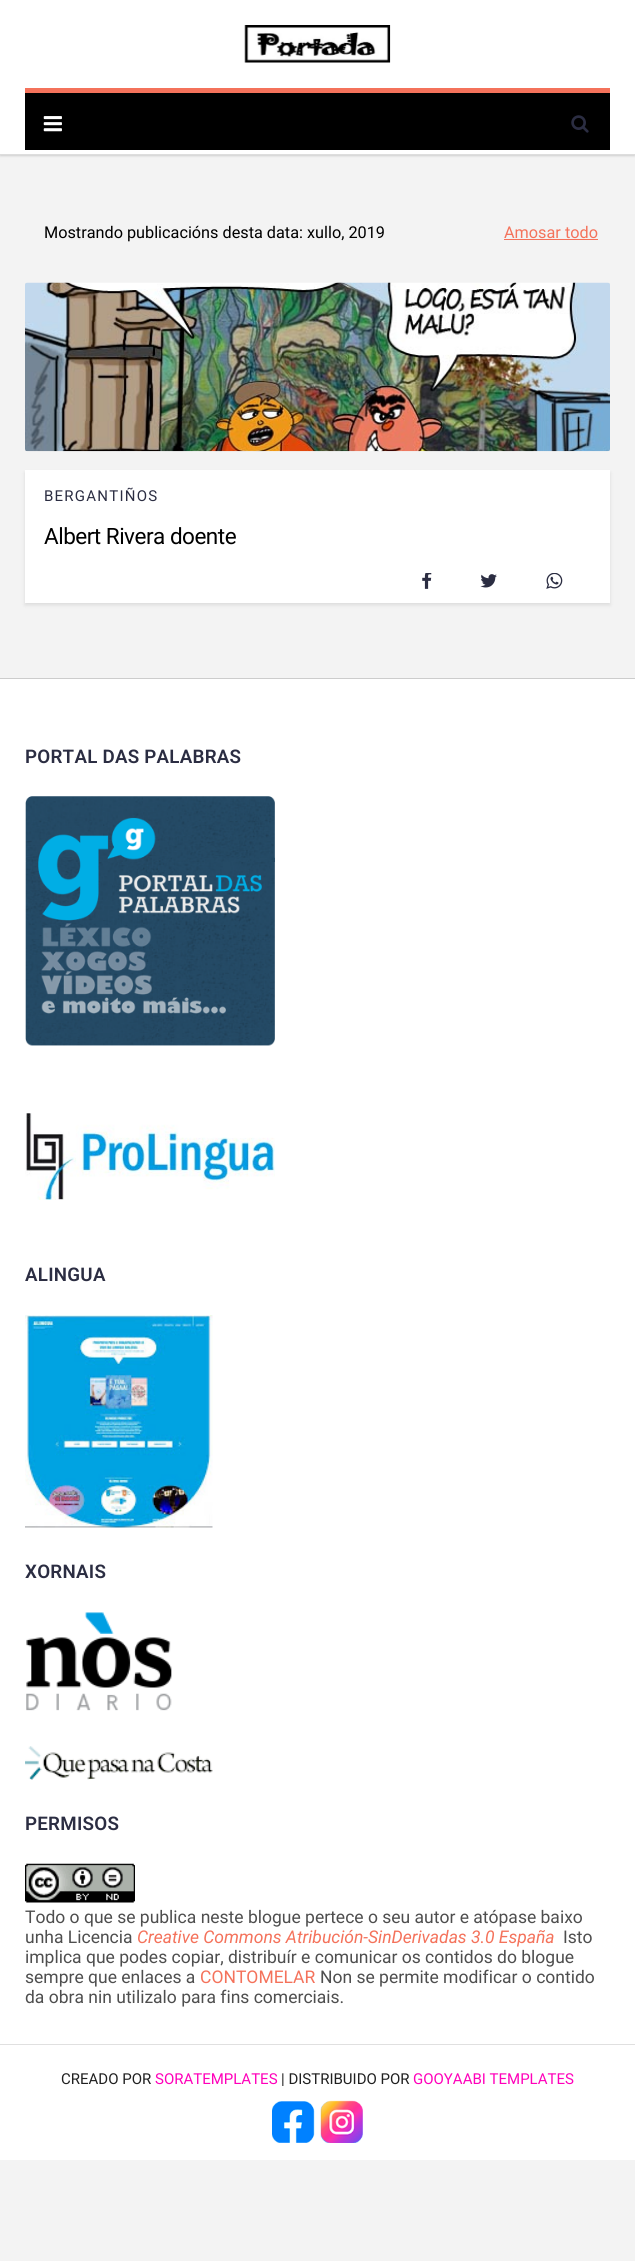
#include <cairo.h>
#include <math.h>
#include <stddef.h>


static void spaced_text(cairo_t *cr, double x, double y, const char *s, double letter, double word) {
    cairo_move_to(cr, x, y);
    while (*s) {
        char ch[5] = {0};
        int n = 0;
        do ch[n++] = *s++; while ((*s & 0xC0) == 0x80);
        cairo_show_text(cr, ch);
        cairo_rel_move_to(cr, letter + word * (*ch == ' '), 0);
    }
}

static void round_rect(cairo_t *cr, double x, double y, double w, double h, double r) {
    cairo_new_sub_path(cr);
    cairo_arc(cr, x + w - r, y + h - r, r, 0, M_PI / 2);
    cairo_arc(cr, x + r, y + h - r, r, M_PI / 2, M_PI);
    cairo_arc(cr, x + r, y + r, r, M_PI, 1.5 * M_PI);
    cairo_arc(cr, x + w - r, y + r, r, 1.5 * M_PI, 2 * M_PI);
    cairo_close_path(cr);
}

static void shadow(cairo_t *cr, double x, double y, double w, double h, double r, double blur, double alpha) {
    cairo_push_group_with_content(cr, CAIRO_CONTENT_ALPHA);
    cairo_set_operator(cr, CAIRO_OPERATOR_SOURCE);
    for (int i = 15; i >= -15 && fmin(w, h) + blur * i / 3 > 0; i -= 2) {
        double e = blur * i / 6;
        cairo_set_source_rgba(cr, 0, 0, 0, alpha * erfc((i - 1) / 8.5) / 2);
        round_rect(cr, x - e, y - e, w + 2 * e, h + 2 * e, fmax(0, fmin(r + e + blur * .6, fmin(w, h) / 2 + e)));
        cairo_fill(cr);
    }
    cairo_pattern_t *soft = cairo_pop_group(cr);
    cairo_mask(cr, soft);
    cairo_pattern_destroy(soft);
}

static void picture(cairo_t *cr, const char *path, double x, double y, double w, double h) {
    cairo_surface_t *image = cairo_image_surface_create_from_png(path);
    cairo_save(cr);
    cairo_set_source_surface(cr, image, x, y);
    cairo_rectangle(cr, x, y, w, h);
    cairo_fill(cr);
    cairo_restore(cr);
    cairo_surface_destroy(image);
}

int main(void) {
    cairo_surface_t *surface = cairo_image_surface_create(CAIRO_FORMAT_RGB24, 635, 2261);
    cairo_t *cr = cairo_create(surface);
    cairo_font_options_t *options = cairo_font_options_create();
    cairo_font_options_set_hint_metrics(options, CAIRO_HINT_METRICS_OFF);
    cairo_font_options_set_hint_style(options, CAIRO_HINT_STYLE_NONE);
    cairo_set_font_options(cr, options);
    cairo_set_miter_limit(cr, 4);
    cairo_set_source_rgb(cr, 0.953, 0.953, 0.953);
    cairo_paint(cr);
    cairo_set_source_rgb(cr, 0, 0, 0);
    shadow(cr, 0, 1, 635, 155, 0, 1, 0.15);
    cairo_set_source_rgb(cr, 1, 1, 1);
    cairo_rectangle(cr, 0, 0, 635, 154);
    cairo_fill(cr);
    cairo_set_source_rgb(cr, 0.867, 0.867, 0.867);
    cairo_rectangle(cr, 0, 154, 635, 1);
    cairo_fill(cr);
    picture(cr, "img1.png", 244, 25, 147, 38);
    cairo_set_source_rgb(cr, 0, 0, 0);
    cairo_rectangle(cr, 25, 93, 585, 57);
    cairo_fill(cr);
    cairo_set_source_rgb(cr, 0.957, 0.447, 0.357);
    cairo_rectangle(cr, 25, 88, 585, 5);
    cairo_fill(cr);
    picture(cr, "img2.png", 43, 116, 19, 16);
    picture(cr, "img3.png", 571, 115, 18, 18);
    cairo_select_font_face(cr, "Roboto", CAIRO_FONT_SLANT_NORMAL, CAIRO_FONT_WEIGHT_NORMAL);
    cairo_set_font_size(cr, 16.25);
    cairo_set_source_rgb(cr, 0, 0, 0);
    cairo_move_to(cr, 44, 238);
    cairo_show_text(cr, "Mostrando publicacións desta data: xullo, 2019");
    cairo_set_source_rgb(cr, 0.957, 0.447, 0.357);
    cairo_move_to(cr, 504, 238);
    cairo_show_text(cr, "Amosar todo");
    cairo_rectangle(cr, 504, 239, 94, 1);
    cairo_fill(cr);
    cairo_set_source_rgb(cr, 0.929, 0.929, 0.929);
    cairo_rectangle(cr, 25, 283, 585, 168);
    cairo_fill(cr);
    picture(cr, "img4.png", 25, 282, 585, 170);
    cairo_set_source_rgb(cr, 0, 0, 0);
    shadow(cr, 25, 473, 585, 132, 0, 2, 0.1);
    cairo_set_source_rgb(cr, 1, 1, 1);
    cairo_rectangle(cr, 25, 470, 585, 133);
    cairo_fill(cr);
    cairo_set_font_size(cr, 15);
    cairo_set_source_rgb(cr, 0.169, 0.176, 0.259);
    spaced_text(cr, 44, 501, "BERGANTIÑOS", 1.25, 0);
    cairo_set_font_size(cr, 22.5);
    cairo_set_source_rgb(cr, 0, 0, 0);
    spaced_text(cr, 44, 544, "Albert Rivera doente", -0.5, 0);
    picture(cr, "img5.png", 422, 573, 10, 16);
    picture(cr, "img6.png", 480, 574, 17, 14);
    picture(cr, "img7.png", 546, 573, 17, 16);
    cairo_set_source_rgb(cr, 1, 1, 1);
    cairo_rectangle(cr, 0, 679, 635, 1481);
    cairo_fill(cr);
    cairo_set_source_rgb(cr, 0.8, 0.8, 0.8);
    cairo_rectangle(cr, 0, 678, 635, 1);
    cairo_fill(cr);
    cairo_select_font_face(cr, "Roboto SemiBold", CAIRO_FONT_SLANT_NORMAL, CAIRO_FONT_WEIGHT_NORMAL);
    cairo_set_font_size(cr, 18.75);
    cairo_set_source_rgb(cr, 0.169, 0.176, 0.259);
    spaced_text(cr, 25, 763, "PORTAL DAS PALABRAS", 0.25, 0);
    picture(cr, "img8.png", 25, 796, 250, 250);
    picture(cr, "img9.png", 25, 1113, 250, 87);
    spaced_text(cr, 25, 1281, "ALINGUA", 0.25, 0);
    picture(cr, "img10.png", 25, 1315, 188, 213);
    spaced_text(cr, 25, 1578, "XORNAIS", 0.25, 0);
    picture(cr, "img11.png", 26, 1612, 146, 99);
    picture(cr, "img12.png", 25, 1746, 188, 34);
    spaced_text(cr, 25, 1830, "PERMISOS", 0.25, 0);
    picture(cr, "img13.png", 25, 1863, 110, 40);
    cairo_select_font_face(cr, "Roboto", CAIRO_FONT_SLANT_NORMAL, CAIRO_FONT_WEIGHT_NORMAL);
    cairo_set_font_size(cr, 17.5);
    cairo_set_source_rgb(cr, 0.306, 0.306, 0.306);
    cairo_move_to(cr, 25, 1923);
    cairo_show_text(cr, "Todo o que se publica neste blogue pertece o seu autor e atópase baixo");
    cairo_move_to(cr, 25, 1943);
    cairo_show_text(cr, "unha Licencia");
    cairo_select_font_face(cr, "Roboto", CAIRO_FONT_SLANT_ITALIC, CAIRO_FONT_WEIGHT_NORMAL);
    cairo_set_source_rgb(cr, 0.957, 0.447, 0.357);
    cairo_move_to(cr, 137, 1943);
    cairo_show_text(cr, "Creative Commons Atribución-SinDerivadas 3.0 España");
    cairo_select_font_face(cr, "Roboto", CAIRO_FONT_SLANT_NORMAL, CAIRO_FONT_WEIGHT_NORMAL);
    cairo_set_source_rgb(cr, 0.306, 0.306, 0.306);
    cairo_move_to(cr, 563, 1943);
    cairo_show_text(cr, "Isto");
    cairo_move_to(cr, 25, 1963);
    cairo_show_text(cr, "implica que podes copiar, distribuír e comunicar os contidos do blogue");
    cairo_move_to(cr, 25, 1983);
    cairo_show_text(cr, "sempre que enlaces a");
    cairo_set_source_rgb(cr, 0.957, 0.447, 0.357);
    cairo_move_to(cr, 200, 1983);
    cairo_show_text(cr, "CONTOMELAR");
    cairo_set_source_rgb(cr, 0.306, 0.306, 0.306);
    cairo_move_to(cr, 320, 1983);
    cairo_show_text(cr, "Non se permite modificar o contido");
    cairo_move_to(cr, 25, 2003);
    cairo_show_text(cr, "da obra nin utilizalo para fins comerciais.");
    cairo_set_source_rgb(cr, 0.878, 0.878, 0.878);
    cairo_rectangle(cr, 0, 2044, 635, 1);
    cairo_fill(cr);
    cairo_set_font_size(cr, 15);
    cairo_set_source_rgb(cr, 0.125, 0.125, 0.125);
    cairo_move_to(cr, 61, 2084);
    cairo_show_text(cr, "CREADO POR");
    cairo_set_source_rgb(cr, 1, 0, 0.729);
    cairo_move_to(cr, 155, 2084);
    cairo_show_text(cr, "SORATEMPLATES");
    cairo_set_source_rgb(cr, 0.125, 0.125, 0.125);
    cairo_move_to(cr, 281, 2084);
    cairo_show_text(cr, "| DISTRIBUIDO POR");
    cairo_set_source_rgb(cr, 1, 0, 0.729);
    cairo_move_to(cr, 413, 2084);
    cairo_show_text(cr, "GOOYAABI TEMPLATES");
    picture(cr, "img14.png", 272, 2101, 43, 42);
    picture(cr, "img15.png", 320, 2100, 43, 43);
    cairo_surface_write_to_png(surface, "page.png");
    cairo_font_options_destroy(options);
    cairo_destroy(cr);
    cairo_surface_destroy(surface);
    return 0;
}
